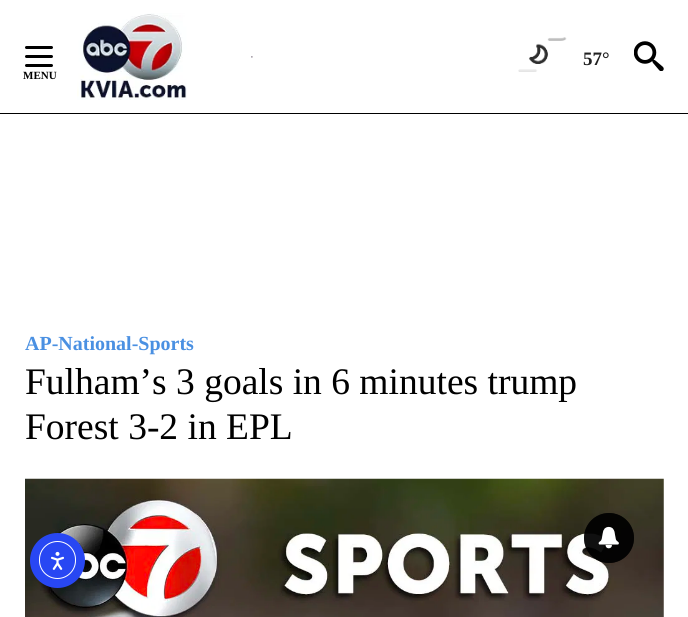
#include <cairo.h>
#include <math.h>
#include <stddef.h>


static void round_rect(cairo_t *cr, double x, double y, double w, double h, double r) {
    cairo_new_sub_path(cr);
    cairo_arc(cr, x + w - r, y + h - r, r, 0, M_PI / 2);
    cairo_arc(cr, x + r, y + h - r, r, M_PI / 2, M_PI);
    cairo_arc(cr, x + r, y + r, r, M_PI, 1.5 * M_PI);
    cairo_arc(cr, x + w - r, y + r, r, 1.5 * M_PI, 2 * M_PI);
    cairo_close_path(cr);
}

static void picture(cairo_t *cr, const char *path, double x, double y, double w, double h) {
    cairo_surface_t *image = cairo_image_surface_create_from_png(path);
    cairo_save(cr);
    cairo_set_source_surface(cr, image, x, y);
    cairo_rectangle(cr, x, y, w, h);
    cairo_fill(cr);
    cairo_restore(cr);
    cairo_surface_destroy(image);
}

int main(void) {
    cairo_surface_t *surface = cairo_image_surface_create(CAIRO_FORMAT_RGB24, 688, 617);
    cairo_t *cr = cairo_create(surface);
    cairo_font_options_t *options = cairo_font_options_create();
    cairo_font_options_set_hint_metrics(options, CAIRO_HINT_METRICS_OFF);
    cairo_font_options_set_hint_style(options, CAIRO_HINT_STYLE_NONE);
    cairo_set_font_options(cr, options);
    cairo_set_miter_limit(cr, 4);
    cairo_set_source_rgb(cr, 1, 1, 1);
    cairo_paint(cr);
    cairo_set_source_rgb(cr, 0, 0, 0);
    cairo_rectangle(cr, 0, 113, 688, 1);
    cairo_fill(cr);
    picture(cr, "img1.png", 77, 13, 110, 87);
    picture(cr, "img2.png", 251, 56, 2, 2);
    picture(cr, "img3.png", 518, 37, 49, 35);
    cairo_select_font_face(cr, "Liberation Serif", CAIRO_FONT_SLANT_NORMAL, CAIRO_FONT_WEIGHT_BOLD);
    cairo_set_font_size(cr, 19);
    cairo_set_source_rgb(cr, 0.129, 0.129, 0.129);
    cairo_move_to(cr, 583, 65);
    cairo_show_text(cr, "57°");
    picture(cr, "img4.png", 634, 41, 30, 30);
    cairo_set_source_rgb(cr, 0, 0, 0);
    round_rect(cr, 25, 46, 28, 3, 1.5);
    cairo_fill(cr);
    round_rect(cr, 25, 55, 28, 3, 1.5);
    cairo_fill(cr);
    round_rect(cr, 25, 64, 28, 3, 1.5);
    cairo_fill(cr);
    cairo_set_font_size(cr, 11);
    cairo_move_to(cr, 23, 79);
    cairo_show_text(cr, "MENU");
    cairo_set_font_size(cr, 20);
    cairo_set_source_rgb(cr, 0.29, 0.565, 0.886);
    cairo_move_to(cr, 25, 350);
    cairo_show_text(cr, "AP-National-Sports");
    cairo_select_font_face(cr, "Liberation Serif", CAIRO_FONT_SLANT_NORMAL, CAIRO_FONT_WEIGHT_NORMAL);
    cairo_set_font_size(cr, 37.5);
    cairo_set_source_rgb(cr, 0, 0, 0);
    cairo_move_to(cr, 25, 394);
    cairo_show_text(cr, "Fulham’s 3 goals in 6 minutes trump");
    cairo_move_to(cr, 25, 439);
    cairo_show_text(cr, "Forest 3-2 in EPL");
    picture(cr, "img5.png", 25, 478, 639, 139);
    cairo_set_source_rgba(cr, 0, 0, 0, 0.75);
    cairo_arc(cr, 609, 538, 25, 0, 2 * M_PI);
    cairo_fill(cr);
    picture(cr, "img6.png", 598, 526, 21, 23);
    cairo_set_source_rgb(cr, 0.157, 0.278, 0.953);
    cairo_arc(cr, 57.5, 560.5, 27.5, 0, 2 * M_PI);
    cairo_fill(cr);
    round_rect(cr, 39.5, 541.5, 36, 37, 18);
    cairo_set_source_rgb(cr, 1, 1, 1);
    cairo_set_line_width(cr, 1);
    cairo_stroke(cr);
    picture(cr, "img7.png", 51, 551, 13, 19);
    cairo_set_source_rgba(cr, 0, 0, 0, 0.75);
    cairo_arc(cr, 609, 538, 25, 0, 2 * M_PI);
    cairo_fill(cr);
    picture(cr, "img8.png", 598, 526, 21, 23);
    cairo_surface_write_to_png(surface, "page.png");
    cairo_font_options_destroy(options);
    cairo_destroy(cr);
    cairo_surface_destroy(surface);
    return 0;
}
